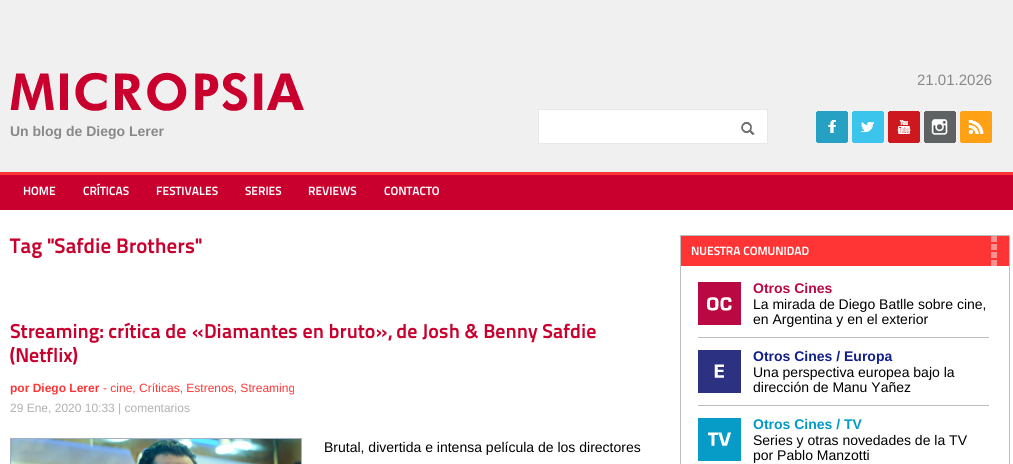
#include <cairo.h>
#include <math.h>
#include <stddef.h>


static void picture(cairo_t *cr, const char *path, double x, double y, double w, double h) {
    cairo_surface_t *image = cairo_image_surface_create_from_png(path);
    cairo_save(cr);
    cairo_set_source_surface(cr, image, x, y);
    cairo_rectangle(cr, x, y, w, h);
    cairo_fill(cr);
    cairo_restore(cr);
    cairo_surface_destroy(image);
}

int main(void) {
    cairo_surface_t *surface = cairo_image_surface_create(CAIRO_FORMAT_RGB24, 1013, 464);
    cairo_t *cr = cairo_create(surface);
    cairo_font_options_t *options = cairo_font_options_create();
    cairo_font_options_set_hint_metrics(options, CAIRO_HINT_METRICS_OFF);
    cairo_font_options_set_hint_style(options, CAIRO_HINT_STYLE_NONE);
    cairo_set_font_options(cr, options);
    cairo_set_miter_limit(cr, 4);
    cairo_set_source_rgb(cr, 1, 1, 1);
    cairo_paint(cr);
    cairo_set_source_rgb(cr, 0.941, 0.941, 0.941);
    cairo_rectangle(cr, 0, 0, 1013, 172);
    cairo_fill(cr);
    cairo_select_font_face(cr, "Liberation Sans", CAIRO_FONT_SLANT_NORMAL, CAIRO_FONT_WEIGHT_NORMAL);
    cairo_set_font_size(cr, 15);
    cairo_set_source_rgb(cr, 0.533, 0.533, 0.533);
    cairo_move_to(cr, 917, 85);
    cairo_show_text(cr, "21.01.2026");
    cairo_set_source_rgb(cr, 1, 1, 1);
    cairo_rectangle(cr, 538.5, 109.5, 229, 34);
    cairo_fill_preserve(cr);
    cairo_set_source_rgb(cr, 0.91, 0.91, 0.91);
    cairo_set_line_width(cr, 1);
    cairo_stroke(cr);
    picture(cr, "img1.png", 741, 122, 14, 13);
    picture(cr, "img2.png", 816, 111, 32, 32);
    picture(cr, "img3.png", 852, 111, 32, 32);
    picture(cr, "img4.png", 888, 111, 32, 32);
    picture(cr, "img5.png", 924, 111, 32, 32);
    picture(cr, "img6.png", 960, 111, 32, 32);
    picture(cr, "img7.png", 10, 72, 294, 39);
    cairo_select_font_face(cr, "Liberation Sans", CAIRO_FONT_SLANT_NORMAL, CAIRO_FONT_WEIGHT_BOLD);
    cairo_set_font_size(cr, 14);
    cairo_set_source_rgb(cr, 0.533, 0.533, 0.533);
    cairo_move_to(cr, 10, 136);
    cairo_show_text(cr, "Un blog de Diego Lerer");
    cairo_set_source_rgb(cr, 0.788, 0, 0.18);
    cairo_rectangle(cr, 0, 175, 1013, 35);
    cairo_fill(cr);
    cairo_set_source_rgb(cr, 1, 0.216, 0.216);
    cairo_rectangle(cr, 0, 172, 1013, 3);
    cairo_fill(cr);
    cairo_select_font_face(cr, "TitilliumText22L", CAIRO_FONT_SLANT_NORMAL, CAIRO_FONT_WEIGHT_BOLD);
    cairo_set_font_size(cr, 12);
    cairo_set_source_rgb(cr, 1, 1, 1);
    cairo_move_to(cr, 23, 195);
    cairo_show_text(cr, "HOME");
    cairo_move_to(cr, 83, 195);
    cairo_show_text(cr, "CRÍTICAS");
    cairo_move_to(cr, 156, 195);
    cairo_show_text(cr, "FESTIVALES");
    cairo_move_to(cr, 245, 195);
    cairo_show_text(cr, "SERIES");
    cairo_move_to(cr, 308, 195);
    cairo_show_text(cr, "REVIEWS");
    cairo_move_to(cr, 384, 195);
    cairo_show_text(cr, "CONTACTO");
    cairo_set_font_size(cr, 21);
    cairo_set_source_rgb(cr, 0.788, 0, 0.18);
    cairo_move_to(cr, 10, 253);
    cairo_show_text(cr, "Tag \"Safdie Brothers\"");
    cairo_set_font_size(cr, 20);
    cairo_move_to(cr, 10, 338);
    cairo_show_text(cr, "Streaming: crítica de «Diamantes en bruto», de Josh & Benny Safdie");
    cairo_move_to(cr, 10, 362);
    cairo_show_text(cr, "(Netflix)");
    cairo_select_font_face(cr, "Liberation Sans", CAIRO_FONT_SLANT_NORMAL, CAIRO_FONT_WEIGHT_BOLD);
    cairo_set_font_size(cr, 12);
    cairo_set_source_rgb(cr, 1, 0.208, 0.208);
    cairo_move_to(cr, 10, 392);
    cairo_show_text(cr, "por Diego Lerer");
    cairo_select_font_face(cr, "Liberation Sans", CAIRO_FONT_SLANT_NORMAL, CAIRO_FONT_WEIGHT_NORMAL);
    cairo_move_to(cr, 103, 392);
    cairo_show_text(cr, "- cine, Críticas, Estrenos, Streaming");
    cairo_set_source_rgb(cr, 0.69, 0.69, 0.69);
    cairo_move_to(cr, 10, 412);
    cairo_show_text(cr, "29 Ene, 2020 10:33 | comentarios");
    cairo_rectangle(cr, 10.5, 438.5, 291, 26);
    cairo_set_source_rgb(cr, 0.643, 0.69, 0.757);
    cairo_stroke(cr);
    picture(cr, "img8.png", 11, 439, 290, 25);
    cairo_set_font_size(cr, 14);
    cairo_set_source_rgb(cr, 0, 0, 0);
    cairo_move_to(cr, 324, 452);
    cairo_show_text(cr, "Brutal, divertida e intensa película de los directores");
    cairo_rectangle(cr, 680.5, 235.5, 329, 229);
    cairo_set_source_rgb(cr, 0.749, 0.749, 0.749);
    cairo_stroke(cr);
    cairo_set_source_rgb(cr, 1, 0.208, 0.208);
    cairo_rectangle(cr, 681, 236, 328, 30);
    cairo_fill(cr);
    cairo_select_font_face(cr, "TitilliumText22L", CAIRO_FONT_SLANT_NORMAL, CAIRO_FONT_WEIGHT_BOLD);
    cairo_set_font_size(cr, 12);
    cairo_set_source_rgb(cr, 1, 1, 1);
    cairo_move_to(cr, 691, 255);
    cairo_show_text(cr, "NUESTRA COMUNIDAD");
    picture(cr, "img9.png", 991, 236, 6, 30);
    cairo_set_source_rgb(cr, 0.737, 0.737, 0.737);
    cairo_rectangle(cr, 698, 337, 291, 1);
    cairo_fill(cr);
    picture(cr, "img10.png", 698, 282, 43, 43);
    cairo_select_font_face(cr, "Liberation Sans", CAIRO_FONT_SLANT_NORMAL, CAIRO_FONT_WEIGHT_BOLD);
    cairo_set_font_size(cr, 14);
    cairo_set_source_rgb(cr, 0.729, 0.035, 0.259);
    cairo_move_to(cr, 753, 293);
    cairo_show_text(cr, "Otros Cines");
    cairo_select_font_face(cr, "Liberation Sans", CAIRO_FONT_SLANT_NORMAL, CAIRO_FONT_WEIGHT_NORMAL);
    cairo_set_source_rgb(cr, 0, 0, 0);
    cairo_move_to(cr, 753, 309);
    cairo_show_text(cr, "La mirada de Diego Batlle sobre cine,");
    cairo_move_to(cr, 753, 324);
    cairo_show_text(cr, "en Argentina y en el exterior");
    cairo_set_source_rgb(cr, 0.737, 0.737, 0.737);
    cairo_rectangle(cr, 698, 405, 291, 1);
    cairo_fill(cr);
    picture(cr, "img11.png", 698, 350, 43, 43);
    cairo_select_font_face(cr, "Liberation Sans", CAIRO_FONT_SLANT_NORMAL, CAIRO_FONT_WEIGHT_BOLD);
    cairo_set_source_rgb(cr, 0.067, 0.122, 0.541);
    cairo_move_to(cr, 753, 361);
    cairo_show_text(cr, "Otros Cines / Europa");
    cairo_select_font_face(cr, "Liberation Sans", CAIRO_FONT_SLANT_NORMAL, CAIRO_FONT_WEIGHT_NORMAL);
    cairo_set_source_rgb(cr, 0, 0, 0);
    cairo_move_to(cr, 753, 377);
    cairo_show_text(cr, "Una perspectiva europea bajo la");
    cairo_move_to(cr, 753, 392);
    cairo_show_text(cr, "dirección de Manu Yañez");
    picture(cr, "img12.png", 698, 418, 43, 43);
    cairo_select_font_face(cr, "Liberation Sans", CAIRO_FONT_SLANT_NORMAL, CAIRO_FONT_WEIGHT_BOLD);
    cairo_set_source_rgb(cr, 0, 0.604, 0.78);
    cairo_move_to(cr, 753, 429);
    cairo_show_text(cr, "Otros Cines / TV");
    cairo_select_font_face(cr, "Liberation Sans", CAIRO_FONT_SLANT_NORMAL, CAIRO_FONT_WEIGHT_NORMAL);
    cairo_set_source_rgb(cr, 0, 0, 0);
    cairo_move_to(cr, 753, 445);
    cairo_show_text(cr, "Series y otras novedades de la TV");
    cairo_move_to(cr, 753, 460);
    cairo_show_text(cr, "por Pablo Manzotti");
    cairo_surface_write_to_png(surface, "page.png");
    cairo_font_options_destroy(options);
    cairo_destroy(cr);
    cairo_surface_destroy(surface);
    return 0;
}
